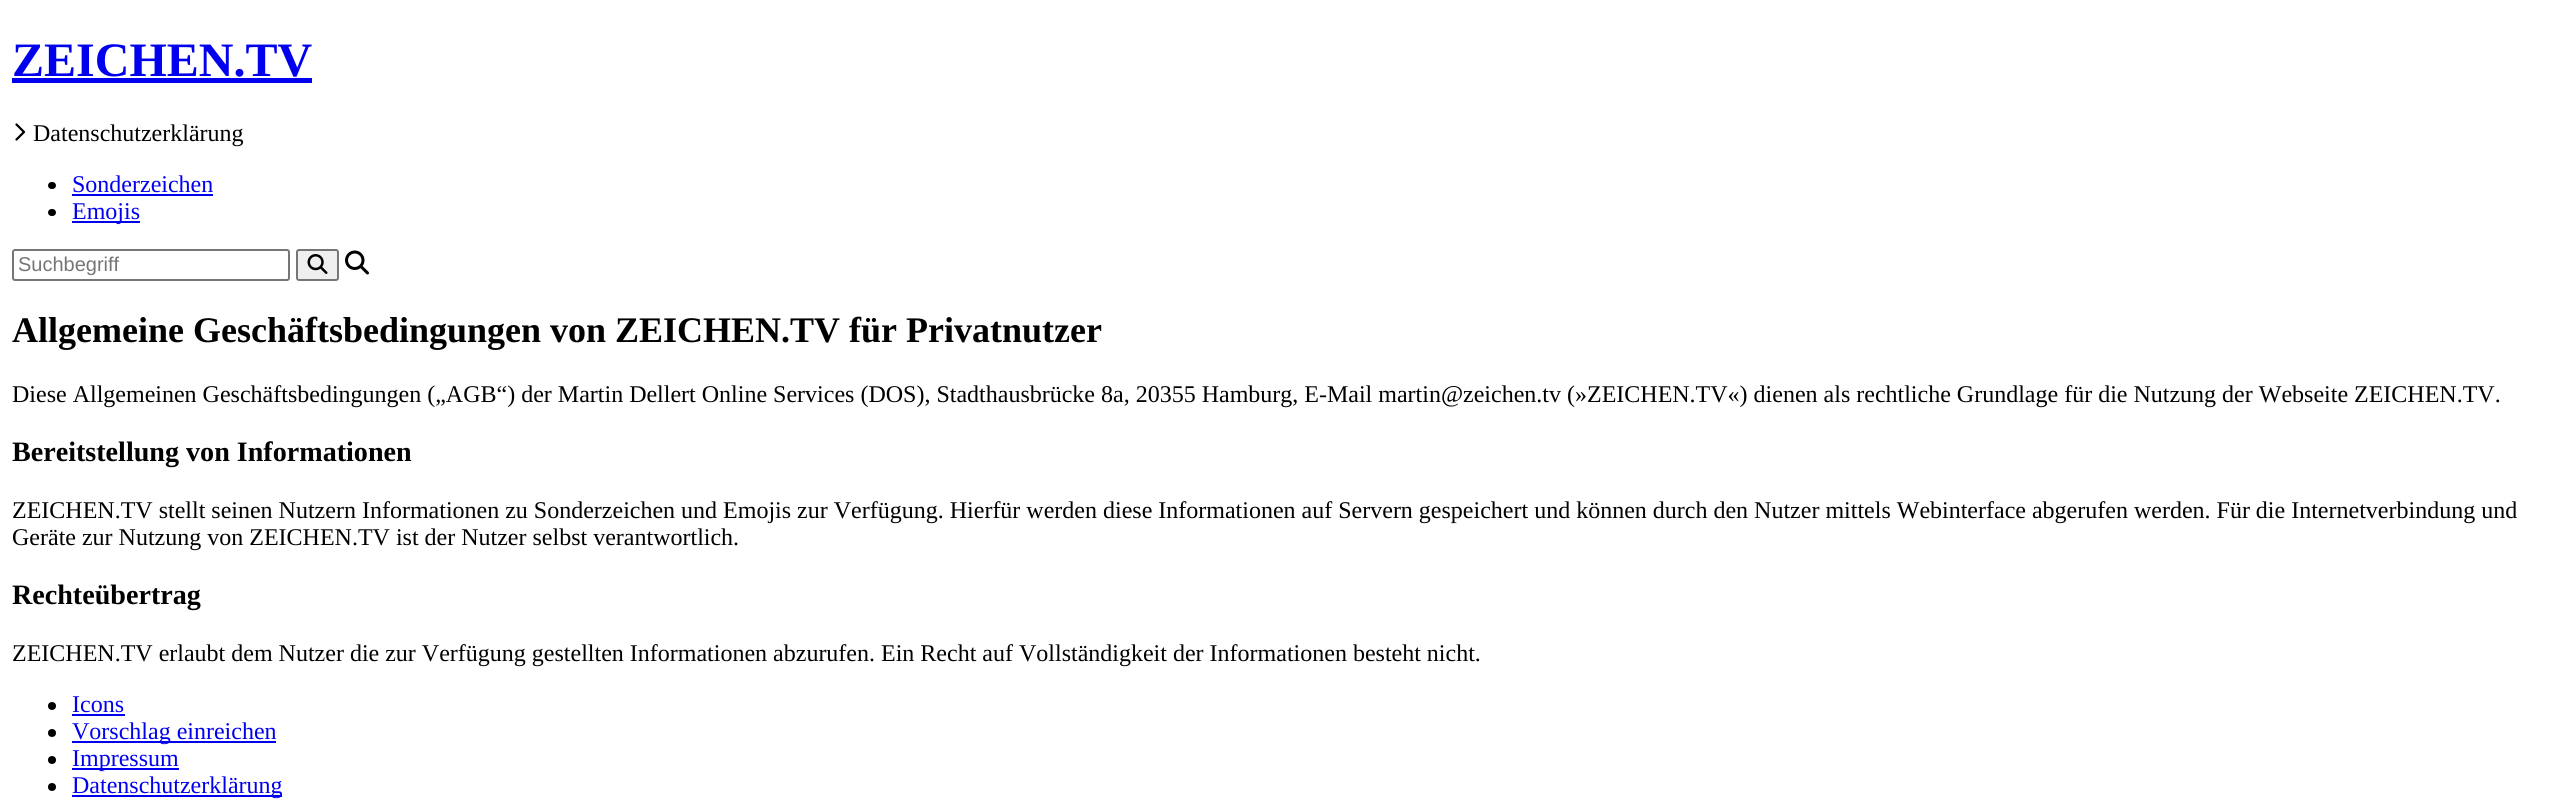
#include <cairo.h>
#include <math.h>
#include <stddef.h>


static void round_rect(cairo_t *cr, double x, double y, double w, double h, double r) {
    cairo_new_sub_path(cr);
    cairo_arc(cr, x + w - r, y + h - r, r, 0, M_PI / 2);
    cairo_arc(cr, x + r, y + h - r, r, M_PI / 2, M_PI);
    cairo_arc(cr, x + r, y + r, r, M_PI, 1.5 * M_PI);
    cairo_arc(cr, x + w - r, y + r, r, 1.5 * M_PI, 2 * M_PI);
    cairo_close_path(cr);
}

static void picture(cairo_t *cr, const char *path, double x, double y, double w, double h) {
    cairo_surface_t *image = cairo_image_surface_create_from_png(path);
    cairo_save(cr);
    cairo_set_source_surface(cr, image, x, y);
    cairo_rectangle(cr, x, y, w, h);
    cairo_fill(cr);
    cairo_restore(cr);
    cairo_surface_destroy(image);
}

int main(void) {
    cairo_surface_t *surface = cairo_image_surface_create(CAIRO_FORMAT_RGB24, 2561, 804);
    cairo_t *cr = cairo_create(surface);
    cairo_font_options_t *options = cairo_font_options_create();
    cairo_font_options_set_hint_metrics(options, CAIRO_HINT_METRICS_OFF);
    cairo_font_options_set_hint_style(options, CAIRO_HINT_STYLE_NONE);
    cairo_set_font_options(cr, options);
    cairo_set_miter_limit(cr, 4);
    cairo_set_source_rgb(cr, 1, 1, 1);
    cairo_paint(cr);
    cairo_select_font_face(cr, "Liberation Serif", CAIRO_FONT_SLANT_NORMAL, CAIRO_FONT_WEIGHT_BOLD);
    cairo_set_font_size(cr, 48);
    cairo_set_source_rgb(cr, 0, 0, 0.933);
    cairo_move_to(cr, 12, 76);
    cairo_show_text(cr, "ZEICHEN.TV");
    cairo_rectangle(cr, 12, 78, 300, 5);
    cairo_fill(cr);
    picture(cr, "img1.png", 15, 123, 11, 18);
    cairo_select_font_face(cr, "Liberation Serif", CAIRO_FONT_SLANT_NORMAL, CAIRO_FONT_WEIGHT_NORMAL);
    cairo_set_font_size(cr, 24);
    cairo_set_source_rgb(cr, 0, 0, 0);
    cairo_move_to(cr, 33, 141);
    cairo_show_text(cr, "Datenschutzerklärung");
    round_rect(cr, 48, 182, 8, 7, 3.5);
    cairo_fill(cr);
    cairo_set_source_rgb(cr, 0, 0, 0.933);
    cairo_move_to(cr, 72, 192);
    cairo_show_text(cr, "Sonderzeichen");
    cairo_rectangle(cr, 72, 194, 141, 2);
    cairo_fill(cr);
    cairo_set_source_rgb(cr, 0, 0, 0);
    round_rect(cr, 48, 209, 8, 7, 3.5);
    cairo_fill(cr);
    cairo_set_source_rgb(cr, 0, 0, 0.933);
    cairo_rectangle(cr, 72, 221, 68, 2);
    cairo_fill(cr);
    cairo_move_to(cr, 72, 219);
    cairo_show_text(cr, "Emojis");
    round_rect(cr, 13, 250, 276, 30, 2);
    cairo_set_source_rgb(cr, 0.463, 0.463, 0.463);
    cairo_stroke(cr);
    cairo_select_font_face(cr, "Liberation Sans", CAIRO_FONT_SLANT_NORMAL, CAIRO_FONT_WEIGHT_NORMAL);
    cairo_set_font_size(cr, 20);
    cairo_set_source_rgb(cr, 0.459, 0.459, 0.459);
    cairo_move_to(cr, 18, 271);
    cairo_show_text(cr, "Suchbegriff");
    cairo_set_source_rgb(cr, 0.937, 0.937, 0.937);
    round_rect(cr, 297, 250, 41, 30, 2);
    cairo_fill_preserve(cr);
    cairo_set_source_rgb(cr, 0.463, 0.463, 0.463);
    cairo_stroke(cr);
    picture(cr, "img2.png", 307, 254, 21, 20);
    picture(cr, "img3.png", 345, 250, 24, 25);
    cairo_select_font_face(cr, "Liberation Serif", CAIRO_FONT_SLANT_NORMAL, CAIRO_FONT_WEIGHT_BOLD);
    cairo_set_font_size(cr, 36);
    cairo_set_source_rgb(cr, 0, 0, 0);
    cairo_move_to(cr, 12, 342);
    cairo_show_text(cr, "Allgemeine Geschäftsbedingungen von ZEICHEN.TV für Privatnutzer");
    cairo_select_font_face(cr, "Liberation Serif", CAIRO_FONT_SLANT_NORMAL, CAIRO_FONT_WEIGHT_NORMAL);
    cairo_set_font_size(cr, 24);
    cairo_move_to(cr, 12, 402);
    cairo_show_text(cr, "Diese Allgemeinen Geschäftsbedingungen („AGB“) der Martin Dellert Online Services (DOS), Stadthausbrücke 8a, 20355 Hamburg, E-Mail martin@zeichen.tv (»ZEICHEN.TV«) dienen als rechtliche Grundlage für die Nutzung der Webseite ZEICHEN.TV.");
    cairo_select_font_face(cr, "Liberation Serif", CAIRO_FONT_SLANT_NORMAL, CAIRO_FONT_WEIGHT_BOLD);
    cairo_set_font_size(cr, 28.1);
    cairo_move_to(cr, 12, 461);
    cairo_show_text(cr, "Bereitstellung von Informationen");
    cairo_select_font_face(cr, "Liberation Serif", CAIRO_FONT_SLANT_NORMAL, CAIRO_FONT_WEIGHT_NORMAL);
    cairo_set_font_size(cr, 24);
    cairo_move_to(cr, 12, 518);
    cairo_show_text(cr, "ZEICHEN.TV stellt seinen Nutzern Informationen zu Sonderzeichen und Emojis zur Verfügung. Hierfür werden diese Informationen auf Servern gespeichert und können durch den Nutzer mittels Webinterface abgerufen werden. Für die Internetverbindung und");
    cairo_move_to(cr, 12, 545);
    cairo_show_text(cr, "Geräte zur Nutzung von ZEICHEN.TV ist der Nutzer selbst verantwortlich.");
    cairo_select_font_face(cr, "Liberation Serif", CAIRO_FONT_SLANT_NORMAL, CAIRO_FONT_WEIGHT_BOLD);
    cairo_set_font_size(cr, 28.1);
    cairo_move_to(cr, 12, 604);
    cairo_show_text(cr, "Rechteübertrag");
    cairo_select_font_face(cr, "Liberation Serif", CAIRO_FONT_SLANT_NORMAL, CAIRO_FONT_WEIGHT_NORMAL);
    cairo_set_font_size(cr, 24);
    cairo_move_to(cr, 12, 661);
    cairo_show_text(cr, "ZEICHEN.TV erlaubt dem Nutzer die zur Verfügung gestellten Informationen abzurufen. Ein Recht auf Vollständigkeit der Informationen besteht nicht.");
    cairo_new_path(cr);
    cairo_arc(cr, 52, 706, 4, 0, 2 * M_PI);
    cairo_fill(cr);
    cairo_set_source_rgb(cr, 0, 0, 0.933);
    cairo_move_to(cr, 72, 712);
    cairo_show_text(cr, "Icons");
    cairo_rectangle(cr, 72, 714, 53, 2);
    cairo_fill(cr);
    cairo_set_source_rgb(cr, 0, 0, 0);
    cairo_arc(cr, 52, 733, 4, 0, 2 * M_PI);
    cairo_fill(cr);
    cairo_set_source_rgb(cr, 0, 0, 0.933);
    cairo_rectangle(cr, 72, 741, 204, 2);
    cairo_fill(cr);
    cairo_move_to(cr, 72, 739);
    cairo_show_text(cr, "Vorschlag einreichen");
    cairo_set_source_rgb(cr, 0, 0, 0);
    cairo_new_path(cr);
    cairo_arc(cr, 52, 760, 4, 0, 2 * M_PI);
    cairo_fill(cr);
    cairo_set_source_rgb(cr, 0, 0, 0.933);
    cairo_rectangle(cr, 72, 768, 107, 2);
    cairo_fill(cr);
    cairo_move_to(cr, 72, 766);
    cairo_show_text(cr, "Impressum");
    cairo_set_source_rgb(cr, 0, 0, 0);
    cairo_new_path(cr);
    cairo_arc(cr, 52, 787, 4, 0, 2 * M_PI);
    cairo_fill(cr);
    cairo_set_source_rgb(cr, 0, 0, 0.933);
    cairo_rectangle(cr, 72, 795, 210, 2);
    cairo_fill(cr);
    cairo_move_to(cr, 72, 793);
    cairo_show_text(cr, "Datenschutzerklärung");
    cairo_surface_write_to_png(surface, "page.png");
    cairo_font_options_destroy(options);
    cairo_destroy(cr);
    cairo_surface_destroy(surface);
    return 0;
}
